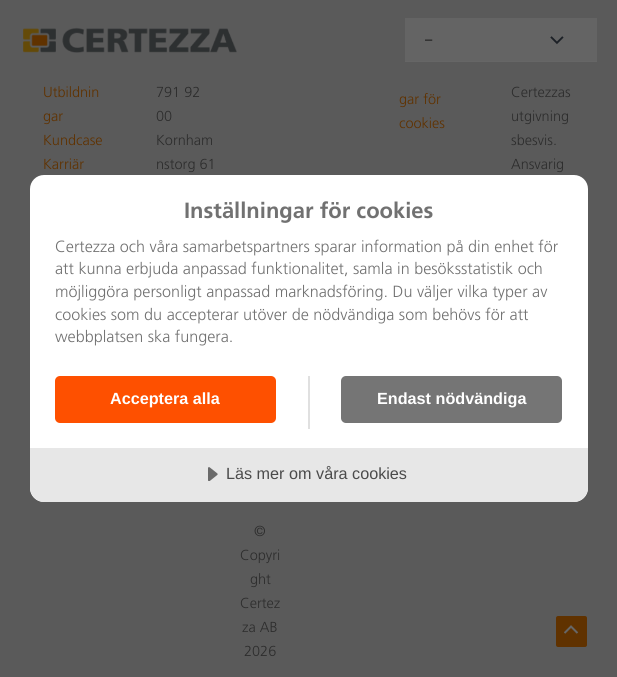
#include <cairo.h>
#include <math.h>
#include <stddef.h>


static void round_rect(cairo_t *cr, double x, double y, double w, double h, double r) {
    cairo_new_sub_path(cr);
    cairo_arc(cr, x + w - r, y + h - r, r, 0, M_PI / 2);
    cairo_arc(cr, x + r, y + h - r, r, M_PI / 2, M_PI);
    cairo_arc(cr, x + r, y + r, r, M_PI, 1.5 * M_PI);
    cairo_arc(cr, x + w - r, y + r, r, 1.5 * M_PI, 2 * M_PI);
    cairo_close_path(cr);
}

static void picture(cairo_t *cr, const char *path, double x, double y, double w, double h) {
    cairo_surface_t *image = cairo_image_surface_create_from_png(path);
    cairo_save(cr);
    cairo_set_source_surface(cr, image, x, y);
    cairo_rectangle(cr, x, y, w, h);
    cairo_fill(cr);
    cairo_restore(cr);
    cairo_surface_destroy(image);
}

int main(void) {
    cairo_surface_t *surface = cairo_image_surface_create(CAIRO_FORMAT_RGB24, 617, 677);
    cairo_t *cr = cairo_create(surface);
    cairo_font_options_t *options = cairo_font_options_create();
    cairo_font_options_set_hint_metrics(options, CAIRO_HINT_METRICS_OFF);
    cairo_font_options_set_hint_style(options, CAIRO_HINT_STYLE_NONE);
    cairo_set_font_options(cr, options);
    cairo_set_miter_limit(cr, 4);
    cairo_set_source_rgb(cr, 0.353, 0.353, 0.353);
    cairo_paint(cr);
    picture(cr, "img1.png", 23, 27, 214, 26);
    cairo_set_source_rgb(cr, 0.392, 0.392, 0.392);
    cairo_rectangle(cr, 405, 18, 192, 43);
    cairo_fill(cr);
    cairo_set_source_rgb(cr, 0.4, 0.4, 0.4);
    cairo_rectangle(cr, 405, 61, 192, 1);
    cairo_fill(cr);
    cairo_select_font_face(cr, "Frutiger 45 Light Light", CAIRO_FONT_SLANT_NORMAL, CAIRO_FONT_WEIGHT_NORMAL);
    cairo_set_font_size(cr, 14.5);
    cairo_set_source_rgb(cr, 0, 0, 0);
    cairo_move_to(cr, 425, 44);
    cairo_show_text(cr, "–");
    picture(cr, "img2.png", 550, 36, 14, 9);
    cairo_set_source_rgb(cr, 0.376, 0.196, 0);
    cairo_move_to(cr, 43, 97);
    cairo_show_text(cr, "Utbildnin");
    cairo_move_to(cr, 43, 121);
    cairo_show_text(cr, "gar");
    cairo_move_to(cr, 43, 145);
    cairo_show_text(cr, "Kundcase");
    cairo_move_to(cr, 43, 169);
    cairo_show_text(cr, "Karriär");
    cairo_set_source_rgb(cr, 0.176, 0.176, 0.176);
    cairo_move_to(cr, 156, 97);
    cairo_show_text(cr, "791 92");
    cairo_move_to(cr, 156, 121);
    cairo_show_text(cr, "00");
    cairo_move_to(cr, 156, 145);
    cairo_show_text(cr, "Kornham");
    cairo_move_to(cr, 156, 169);
    cairo_show_text(cr, "nstorg 61");
    cairo_set_source_rgb(cr, 0.376, 0.196, 0);
    cairo_move_to(cr, 399, 104);
    cairo_show_text(cr, "gar för");
    cairo_move_to(cr, 399, 128);
    cairo_show_text(cr, "cookies");
    cairo_set_source_rgb(cr, 0.176, 0.176, 0.176);
    cairo_move_to(cr, 511, 97);
    cairo_show_text(cr, "Certezzas");
    cairo_move_to(cr, 511, 121);
    cairo_show_text(cr, "utgivning");
    cairo_move_to(cr, 511, 145);
    cairo_show_text(cr, "sbesvis.");
    cairo_move_to(cr, 511, 169);
    cairo_show_text(cr, "Ansvarig");
    cairo_move_to(cr, 254, 536);
    cairo_show_text(cr, "©");
    cairo_move_to(cr, 240, 560);
    cairo_show_text(cr, "Copyri");
    cairo_move_to(cr, 250, 584);
    cairo_show_text(cr, "ght");
    cairo_move_to(cr, 240, 608);
    cairo_show_text(cr, "Certez");
    cairo_move_to(cr, 242, 632);
    cairo_show_text(cr, "za AB");
    cairo_move_to(cr, 244, 656);
    cairo_show_text(cr, "2026");
    cairo_set_source_rgb(cr, 1, 1, 1);
    round_rect(cr, 30, 175, 558, 327, 14);
    cairo_fill(cr);
    cairo_select_font_face(cr, "Frutiger 45 Light", CAIRO_FONT_SLANT_NORMAL, CAIRO_FONT_WEIGHT_BOLD);
    cairo_set_font_size(cr, 22);
    cairo_set_source_rgb(cr, 0.443, 0.443, 0.443);
    cairo_move_to(cr, 184, 218);
    cairo_show_text(cr, "Inställningar för cookies");
    cairo_select_font_face(cr, "Frutiger 45 Light Light", CAIRO_FONT_SLANT_NORMAL, CAIRO_FONT_WEIGHT_NORMAL);
    cairo_set_font_size(cr, 16.2);
    cairo_move_to(cr, 55, 252);
    cairo_show_text(cr, "Certezza och våra samarbetspartners sparar information på din enhet för");
    cairo_move_to(cr, 55, 274);
    cairo_show_text(cr, "att kunna erbjuda anpassad funktionalitet, samla in besöksstatistik och");
    cairo_move_to(cr, 55, 297);
    cairo_show_text(cr, "möjliggöra personligt anpassad marknadsföring. Du väljer vilka typer av");
    cairo_move_to(cr, 55, 320);
    cairo_show_text(cr, "cookies som du accepterar utöver de nödvändiga som behövs för att");
    cairo_move_to(cr, 55, 342);
    cairo_show_text(cr, "webbplatsen ska fungera.");
    cairo_set_source_rgb(cr, 0.878, 0.878, 0.878);
    cairo_rectangle(cr, 308, 376, 2, 53);
    cairo_fill(cr);
    cairo_set_source_rgb(cr, 0.996, 0.314, 0);
    round_rect(cr, 55, 376, 221, 47, 5);
    cairo_fill(cr);
    cairo_select_font_face(cr, "Liberation Sans", CAIRO_FONT_SLANT_NORMAL, CAIRO_FONT_WEIGHT_BOLD);
    cairo_set_source_rgb(cr, 1, 1, 1);
    cairo_move_to(cr, 110, 404);
    cairo_show_text(cr, "Acceptera alla");
    cairo_set_source_rgb(cr, 0.459, 0.459, 0.459);
    round_rect(cr, 341, 376, 221, 47, 5);
    cairo_fill(cr);
    cairo_set_source_rgb(cr, 1, 1, 1);
    cairo_move_to(cr, 377, 404);
    cairo_show_text(cr, "Endast nödvändiga");
    cairo_set_source_rgb(cr, 0.906, 0.906, 0.906);
    cairo_new_path(cr);
    cairo_move_to(cr, 30, 448);
    cairo_line_to(cr, 588, 448);
    cairo_line_to(cr, 588, 488);
    cairo_curve_to(cr, 588, 495.5, 581.5, 502, 574, 502);
    cairo_line_to(cr, 44, 502);
    cairo_curve_to(cr, 36.5, 502, 30, 495.5, 30, 488);
    cairo_close_path(cr);
    cairo_fill(cr);
    picture(cr, "img3.png", 208, 467, 10, 14);
    cairo_select_font_face(cr, "Liberation Sans", CAIRO_FONT_SLANT_NORMAL, CAIRO_FONT_WEIGHT_NORMAL);
    cairo_set_source_rgb(cr, 0.294, 0.294, 0.294);
    cairo_move_to(cr, 226, 479);
    cairo_show_text(cr, "Läs mer om våra cookies");
    cairo_set_source_rgb(cr, 0.376, 0.196, 0);
    round_rect(cr, 556, 616, 31, 31, 2);
    cairo_fill(cr);
    picture(cr, "img4.png", 564, 625, 15, 9);
    cairo_surface_write_to_png(surface, "page.png");
    cairo_font_options_destroy(options);
    cairo_destroy(cr);
    cairo_surface_destroy(surface);
    return 0;
}
